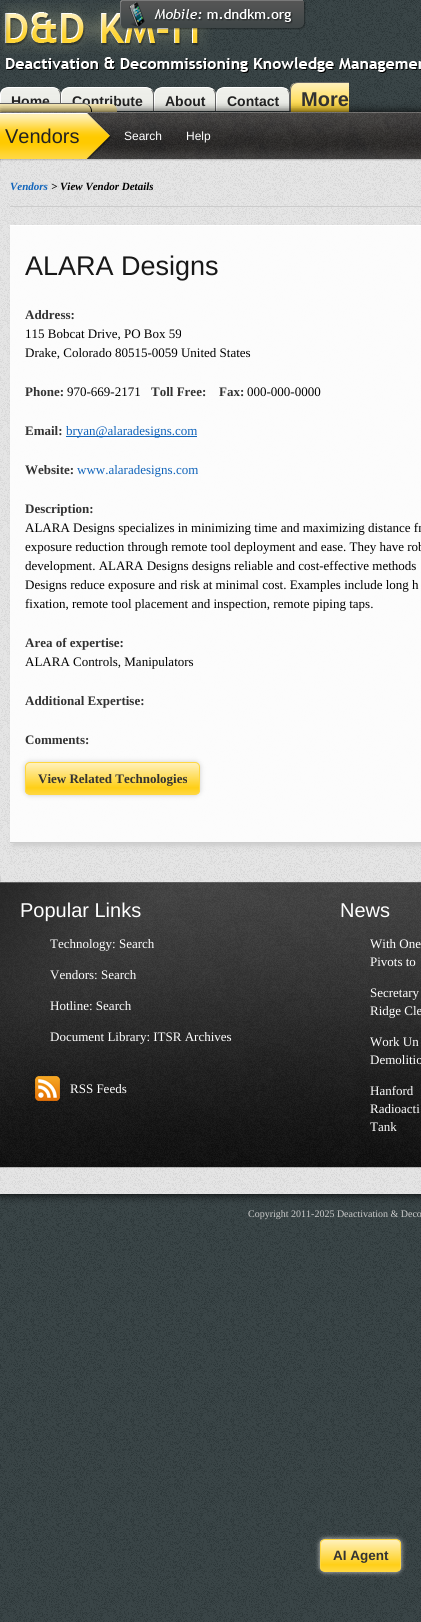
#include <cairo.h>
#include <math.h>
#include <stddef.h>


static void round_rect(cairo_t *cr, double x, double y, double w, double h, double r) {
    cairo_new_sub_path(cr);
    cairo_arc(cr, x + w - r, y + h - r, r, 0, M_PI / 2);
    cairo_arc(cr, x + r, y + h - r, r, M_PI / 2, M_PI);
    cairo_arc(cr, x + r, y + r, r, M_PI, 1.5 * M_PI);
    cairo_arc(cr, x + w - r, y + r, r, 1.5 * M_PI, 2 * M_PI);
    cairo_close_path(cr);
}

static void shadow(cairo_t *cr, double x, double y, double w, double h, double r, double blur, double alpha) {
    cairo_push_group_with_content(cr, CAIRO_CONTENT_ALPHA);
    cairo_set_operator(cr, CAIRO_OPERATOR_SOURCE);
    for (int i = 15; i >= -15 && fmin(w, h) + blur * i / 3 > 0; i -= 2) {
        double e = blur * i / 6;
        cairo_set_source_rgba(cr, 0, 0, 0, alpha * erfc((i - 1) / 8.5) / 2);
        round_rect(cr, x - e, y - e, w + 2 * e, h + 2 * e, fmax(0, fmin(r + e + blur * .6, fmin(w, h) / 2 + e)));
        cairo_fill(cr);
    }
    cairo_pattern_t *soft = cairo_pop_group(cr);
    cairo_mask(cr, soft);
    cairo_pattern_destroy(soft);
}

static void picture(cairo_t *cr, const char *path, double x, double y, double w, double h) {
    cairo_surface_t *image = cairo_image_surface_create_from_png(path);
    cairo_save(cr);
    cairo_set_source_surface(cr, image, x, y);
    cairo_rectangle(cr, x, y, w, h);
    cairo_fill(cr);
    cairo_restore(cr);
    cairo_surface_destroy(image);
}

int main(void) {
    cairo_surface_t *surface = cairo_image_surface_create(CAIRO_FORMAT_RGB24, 421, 1622);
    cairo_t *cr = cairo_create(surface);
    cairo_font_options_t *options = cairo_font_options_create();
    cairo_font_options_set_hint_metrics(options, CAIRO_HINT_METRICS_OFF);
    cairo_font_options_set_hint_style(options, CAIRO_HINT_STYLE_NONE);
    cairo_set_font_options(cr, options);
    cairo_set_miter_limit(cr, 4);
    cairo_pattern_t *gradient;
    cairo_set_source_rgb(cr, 1, 1, 1);
    cairo_paint(cr);
    picture(cr, "img1.png", 0, 0, 421, 1622);
    picture(cr, "img3.png", 1, 3, 420, 70);
    picture(cr, "img2.png", 120, 0, 186, 30);
    picture(cr, "img5.png", 0, 88, 61, 15);
    picture(cr, "img6.png", 61, 88, 93, 23);
    picture(cr, "img7.png", 154, 88, 62, 23);
    picture(cr, "img8.png", 216, 88, 74, 23);
    cairo_select_font_face(cr, "Liberation Sans", CAIRO_FONT_SLANT_NORMAL, CAIRO_FONT_WEIGHT_BOLD);
    cairo_set_font_size(cr, 14);
    cairo_set_source_rgb(cr, 0.133, 0.133, 0.133);
    cairo_move_to(cr, 11, 106);
    cairo_show_text(cr, "Home");
    cairo_set_source_rgb(cr, 1, 1, 1);
    cairo_new_path(cr);
    cairo_move_to(cr, 8, 87);
    cairo_curve_to(cr, 6, 87, 4, 88, 2, 90);
    cairo_line_to(cr, 3, 90);
    cairo_curve_to(cr, 4, 89, 6, 88, 8, 88);
    cairo_line_to(cr, 53, 88);
    cairo_curve_to(cr, 55, 88, 57, 89, 58, 90);
    cairo_curve_to(cr, 57, 88, 55, 87, 53, 87);
    cairo_close_path(cr);
    cairo_fill(cr);
    cairo_set_source_rgb(cr, 0.4, 0.4, 0.4);
    cairo_new_path(cr);
    cairo_move_to(cr, 60, 111);
    cairo_line_to(cr, 61, 111);
    cairo_line_to(cr, 61, 95);
    cairo_curve_to(cr, 61, 93, 60, 91, 58.5, 89.5);
    cairo_line_to(cr, 58, 90);
    cairo_curve_to(cr, 59, 91, 60, 93, 60, 95);
    cairo_close_path(cr);
    cairo_fill(cr);
    cairo_set_source_rgb(cr, 1, 1, 1);
    cairo_new_path(cr);
    cairo_move_to(cr, 0, 111);
    cairo_line_to(cr, 1, 111);
    cairo_line_to(cr, 1, 95);
    cairo_curve_to(cr, 1, 93, 2, 91, 3, 90);
    cairo_line_to(cr, 2.5, 89.5);
    cairo_curve_to(cr, 1, 91, 0, 93, 0, 95);
    cairo_close_path(cr);
    cairo_fill(cr);
    cairo_set_source_rgb(cr, 0.133, 0.133, 0.133);
    cairo_move_to(cr, 72, 106);
    cairo_show_text(cr, "Contribute");
    cairo_set_source_rgb(cr, 1, 1, 1);
    cairo_new_path(cr);
    cairo_move_to(cr, 69, 87);
    cairo_curve_to(cr, 67, 87, 65, 88, 64, 90);
    cairo_curve_to(cr, 65, 89, 67, 88, 69, 88);
    cairo_line_to(cr, 146, 88);
    cairo_curve_to(cr, 148, 88, 150, 89, 151, 90);
    cairo_line_to(cr, 152, 90);
    cairo_curve_to(cr, 150, 88, 148, 87, 146, 87);
    cairo_close_path(cr);
    cairo_fill(cr);
    cairo_set_source_rgb(cr, 0.4, 0.4, 0.4);
    cairo_new_path(cr);
    cairo_move_to(cr, 153, 111);
    cairo_line_to(cr, 154, 111);
    cairo_line_to(cr, 154, 95);
    cairo_curve_to(cr, 154, 93, 153, 91, 151.5, 89.5);
    cairo_line_to(cr, 151, 90);
    cairo_curve_to(cr, 152, 91, 153, 93, 153, 95);
    cairo_close_path(cr);
    cairo_fill(cr);
    cairo_set_source_rgb(cr, 1, 1, 1);
    cairo_new_path(cr);
    cairo_move_to(cr, 61, 111);
    cairo_line_to(cr, 62, 111);
    cairo_line_to(cr, 62, 95);
    cairo_curve_to(cr, 62, 93, 63, 91, 64, 90);
    cairo_line_to(cr, 63.5, 89.5);
    cairo_curve_to(cr, 62, 91, 61, 93, 61, 95);
    cairo_close_path(cr);
    cairo_fill(cr);
    cairo_set_source_rgb(cr, 0.133, 0.133, 0.133);
    cairo_move_to(cr, 165, 106);
    cairo_show_text(cr, "About");
    cairo_set_source_rgb(cr, 1, 1, 1);
    cairo_new_path(cr);
    cairo_move_to(cr, 162, 87);
    cairo_curve_to(cr, 160, 87, 158, 88, 156, 90);
    cairo_line_to(cr, 157, 90);
    cairo_curve_to(cr, 158, 89, 160, 88, 162, 88);
    cairo_line_to(cr, 208, 88);
    cairo_curve_to(cr, 210, 88, 212, 89, 213, 90);
    cairo_line_to(cr, 214, 90);
    cairo_curve_to(cr, 212, 88, 210, 87, 208, 87);
    cairo_close_path(cr);
    cairo_fill(cr);
    cairo_set_source_rgb(cr, 0.4, 0.4, 0.4);
    cairo_new_path(cr);
    cairo_move_to(cr, 215, 111);
    cairo_line_to(cr, 216, 111);
    cairo_line_to(cr, 216, 95);
    cairo_curve_to(cr, 216, 93, 215, 91, 213.5, 89.5);
    cairo_line_to(cr, 213, 90);
    cairo_curve_to(cr, 214, 91, 215, 93, 215, 95);
    cairo_close_path(cr);
    cairo_fill(cr);
    cairo_set_source_rgb(cr, 1, 1, 1);
    cairo_new_path(cr);
    cairo_move_to(cr, 154, 111);
    cairo_line_to(cr, 155, 111);
    cairo_line_to(cr, 155, 95);
    cairo_curve_to(cr, 155, 93, 156, 91, 157, 90);
    cairo_line_to(cr, 156.5, 89.5);
    cairo_curve_to(cr, 155, 91, 154, 93, 154, 95);
    cairo_close_path(cr);
    cairo_fill(cr);
    cairo_set_source_rgb(cr, 0.133, 0.133, 0.133);
    cairo_move_to(cr, 227, 106);
    cairo_show_text(cr, "Contact");
    cairo_set_source_rgb(cr, 1, 1, 1);
    cairo_new_path(cr);
    cairo_move_to(cr, 224, 87);
    cairo_curve_to(cr, 222, 87, 220, 88, 218, 90);
    cairo_line_to(cr, 219, 90);
    cairo_curve_to(cr, 220, 89, 222, 88, 224, 88);
    cairo_line_to(cr, 282, 88);
    cairo_curve_to(cr, 284, 88, 286, 89, 287, 90);
    cairo_line_to(cr, 288, 90);
    cairo_curve_to(cr, 286, 88, 284, 87, 282, 87);
    cairo_close_path(cr);
    cairo_fill(cr);
    cairo_set_source_rgb(cr, 0.4, 0.4, 0.4);
    cairo_new_path(cr);
    cairo_move_to(cr, 289, 111);
    cairo_line_to(cr, 290, 111);
    cairo_line_to(cr, 290, 95);
    cairo_curve_to(cr, 290, 93, 289, 91, 287.5, 89.5);
    cairo_line_to(cr, 287, 90);
    cairo_curve_to(cr, 288, 91, 289, 93, 289, 95);
    cairo_close_path(cr);
    cairo_fill(cr);
    cairo_set_source_rgb(cr, 1, 1, 1);
    cairo_new_path(cr);
    cairo_move_to(cr, 216, 111);
    cairo_line_to(cr, 217, 111);
    cairo_line_to(cr, 217, 95);
    cairo_curve_to(cr, 217, 93, 218, 91, 219, 90);
    cairo_line_to(cr, 218.5, 89.5);
    cairo_curve_to(cr, 217, 91, 216, 93, 216, 95);
    cairo_close_path(cr);
    cairo_fill(cr);
    picture(cr, "img4.png", 0, 83, 349, 29);
    cairo_set_source_rgb(cr, 0.4, 0.4, 0.4);
    cairo_set_fill_rule(cr, CAIRO_FILL_RULE_EVEN_ODD);
    cairo_new_path(cr);
    cairo_move_to(cr, 298, 82);
    cairo_line_to(cr, 349, 82);
    cairo_line_to(cr, 349, 112);
    cairo_line_to(cr, 290, 112);
    cairo_line_to(cr, 290, 90);
    cairo_curve_to(cr, 290, 86, 294, 82, 298, 82);
    cairo_close_path(cr);
    cairo_move_to(cr, 298, 83);
    cairo_line_to(cr, 349, 83);
    cairo_line_to(cr, 349, 112);
    cairo_line_to(cr, 291, 112);
    cairo_line_to(cr, 291, 90);
    cairo_curve_to(cr, 291, 86, 294, 83, 298, 83);
    cairo_close_path(cr);
    cairo_fill(cr);
    cairo_set_font_size(cr, 20);
    cairo_set_source_rgb(cr, 0.2, 0.2, 0.2);
    cairo_move_to(cr, 301, 106);
    cairo_show_text(cr, "More");
    cairo_set_source_rgb(cr, 0.4, 0.4, 0.4);
    cairo_set_fill_rule(cr, CAIRO_FILL_RULE_WINDING);
    cairo_new_path(cr);
    cairo_move_to(cr, 0, 103);
    cairo_line_to(cr, 0, 104);
    cairo_line_to(cr, 84, 104);
    cairo_curve_to(cr, 86, 104, 88, 105, 89, 106);
    cairo_line_to(cr, 90, 106);
    cairo_curve_to(cr, 88, 104, 86, 103, 84, 103);
    cairo_close_path(cr);
    cairo_fill(cr);
    cairo_set_source_rgb(cr, 0, 0, 0);
    cairo_new_path(cr);
    cairo_move_to(cr, 91, 133);
    cairo_line_to(cr, 92, 133);
    cairo_line_to(cr, 92, 111);
    cairo_curve_to(cr, 92, 109, 91, 107, 89.5, 105.5);
    cairo_line_to(cr, 89, 106);
    cairo_curve_to(cr, 90, 107, 91, 109, 91, 111);
    cairo_close_path(cr);
    cairo_fill(cr);
    cairo_set_source_rgb(cr, 0, 0, 0);
    shadow(cr, 0, 112, 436, 1082, 0, 5, 1);
    picture(cr, "img9.png", 0, 159, 421, 1035);
    picture(cr, "img10.png", 0, 112, 421, 55);
    picture(cr, "img11.png", 0, 113, 111, 46);
    cairo_select_font_face(cr, "Liberation Sans", CAIRO_FONT_SLANT_NORMAL, CAIRO_FONT_WEIGHT_NORMAL);
    cairo_set_source_rgb(cr, 0.133, 0.133, 0.133);
    cairo_move_to(cr, 5, 143);
    cairo_show_text(cr, "Vendors");
    cairo_set_font_size(cr, 12);
    cairo_set_source_rgb(cr, 1, 1, 1);
    cairo_move_to(cr, 124, 140);
    cairo_show_text(cr, "Search");
    cairo_move_to(cr, 186, 140);
    cairo_show_text(cr, "Help");
    cairo_set_source_rgb(cr, 0.8, 0.8, 0.8);
    cairo_rectangle(cr, 10, 206, 411, 1);
    cairo_fill(cr);
    cairo_select_font_face(cr, "Liberation Serif", CAIRO_FONT_SLANT_ITALIC, CAIRO_FONT_WEIGHT_BOLD);
    cairo_set_font_size(cr, 11);
    cairo_set_source_rgb(cr, 0.059, 0.388, 0.729);
    cairo_move_to(cr, 10, 190);
    cairo_show_text(cr, "Vendors");
    cairo_set_source_rgb(cr, 0, 0, 0);
    cairo_move_to(cr, 51, 190);
    cairo_show_text(cr, "> View Vendor Details");
    cairo_save(cr);
    cairo_set_fill_rule(cr, CAIRO_FILL_RULE_EVEN_ODD);
    cairo_new_path(cr);
    cairo_move_to(cr, 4, 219);
    cairo_line_to(cr, 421, 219);
    cairo_line_to(cr, 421, 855);
    cairo_line_to(cr, 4, 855);
    cairo_close_path(cr);
    cairo_move_to(cr, 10, 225);
    cairo_line_to(cr, 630, 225);
    cairo_line_to(cr, 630, 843);
    cairo_line_to(cr, 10, 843);
    cairo_close_path(cr);
    cairo_clip(cr);
    cairo_set_source_rgb(cr, 0.8, 0.8, 0.8);
    shadow(cr, 13, 228, 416, 618, 0, 2.5, 1);
    cairo_restore(cr);
    cairo_set_source_rgba(cr, 1, 1, 1, 0.9);
    cairo_rectangle(cr, 10, 226, 411, 616);
    cairo_fill(cr);
    cairo_set_source_rgb(cr, 1, 1, 1);
    cairo_rectangle(cr, 10, 225, 411, 1);
    cairo_fill(cr);
    cairo_set_source_rgb(cr, 0.8, 0.8, 0.8);
    cairo_rectangle(cr, 10, 842, 411, 1);
    cairo_fill(cr);
    cairo_select_font_face(cr, "Liberation Sans", CAIRO_FONT_SLANT_NORMAL, CAIRO_FONT_WEIGHT_NORMAL);
    cairo_set_font_size(cr, 27);
    cairo_set_source_rgb(cr, 0.094, 0.094, 0.094);
    cairo_move_to(cr, 25, 275);
    cairo_show_text(cr, "ALARA Designs");
    cairo_select_font_face(cr, "Liberation Serif", CAIRO_FONT_SLANT_NORMAL, CAIRO_FONT_WEIGHT_BOLD);
    cairo_set_font_size(cr, 13);
    cairo_set_source_rgb(cr, 0.2, 0.2, 0.2);
    cairo_move_to(cr, 25, 319);
    cairo_show_text(cr, "Address:");
    cairo_select_font_face(cr, "Liberation Serif", CAIRO_FONT_SLANT_NORMAL, CAIRO_FONT_WEIGHT_NORMAL);
    cairo_set_source_rgb(cr, 0, 0, 0);
    cairo_move_to(cr, 25, 338);
    cairo_show_text(cr, "115 Bobcat Drive, PO Box 59");
    cairo_move_to(cr, 25, 357);
    cairo_show_text(cr, "Drake, Colorado 80515-0059 United States");
    cairo_select_font_face(cr, "Liberation Serif", CAIRO_FONT_SLANT_NORMAL, CAIRO_FONT_WEIGHT_BOLD);
    cairo_set_source_rgb(cr, 0.2, 0.2, 0.2);
    cairo_move_to(cr, 25, 396);
    cairo_show_text(cr, "Phone:");
    cairo_select_font_face(cr, "Liberation Serif", CAIRO_FONT_SLANT_NORMAL, CAIRO_FONT_WEIGHT_NORMAL);
    cairo_set_source_rgb(cr, 0, 0, 0);
    cairo_move_to(cr, 67, 396);
    cairo_show_text(cr, "970-669-2171");
    cairo_select_font_face(cr, "Liberation Serif", CAIRO_FONT_SLANT_NORMAL, CAIRO_FONT_WEIGHT_BOLD);
    cairo_set_source_rgb(cr, 0.2, 0.2, 0.2);
    cairo_move_to(cr, 151, 396);
    cairo_show_text(cr, "Toll Free:");
    cairo_move_to(cr, 219, 396);
    cairo_show_text(cr, "Fax:");
    cairo_select_font_face(cr, "Liberation Serif", CAIRO_FONT_SLANT_NORMAL, CAIRO_FONT_WEIGHT_NORMAL);
    cairo_set_source_rgb(cr, 0, 0, 0);
    cairo_move_to(cr, 247, 396);
    cairo_show_text(cr, "000-000-0000");
    cairo_select_font_face(cr, "Liberation Serif", CAIRO_FONT_SLANT_NORMAL, CAIRO_FONT_WEIGHT_BOLD);
    cairo_set_source_rgb(cr, 0.2, 0.2, 0.2);
    cairo_move_to(cr, 25, 435);
    cairo_show_text(cr, "Email:");
    cairo_set_source_rgb(cr, 0.059, 0.388, 0.729);
    cairo_rectangle(cr, 66, 436, 131, 1);
    cairo_fill(cr);
    cairo_select_font_face(cr, "Liberation Serif", CAIRO_FONT_SLANT_NORMAL, CAIRO_FONT_WEIGHT_NORMAL);
    cairo_move_to(cr, 66, 435);
    cairo_show_text(cr, "bryan@alaradesigns.com");
    cairo_select_font_face(cr, "Liberation Serif", CAIRO_FONT_SLANT_NORMAL, CAIRO_FONT_WEIGHT_BOLD);
    cairo_set_source_rgb(cr, 0.2, 0.2, 0.2);
    cairo_move_to(cr, 25, 474);
    cairo_show_text(cr, "Website:");
    cairo_select_font_face(cr, "Liberation Serif", CAIRO_FONT_SLANT_NORMAL, CAIRO_FONT_WEIGHT_NORMAL);
    cairo_set_source_rgb(cr, 0.059, 0.388, 0.729);
    cairo_move_to(cr, 77, 474);
    cairo_show_text(cr, "www.alaradesigns.com");
    cairo_select_font_face(cr, "Liberation Serif", CAIRO_FONT_SLANT_NORMAL, CAIRO_FONT_WEIGHT_BOLD);
    cairo_set_source_rgb(cr, 0.2, 0.2, 0.2);
    cairo_move_to(cr, 25, 513);
    cairo_show_text(cr, "Description:");
    cairo_select_font_face(cr, "Liberation Serif", CAIRO_FONT_SLANT_NORMAL, CAIRO_FONT_WEIGHT_NORMAL);
    cairo_set_source_rgb(cr, 0, 0, 0);
    cairo_move_to(cr, 25, 532);
    cairo_show_text(cr, "ALARA Designs specializes in minimizing time and maximizing distance fr");
    cairo_move_to(cr, 25, 551);
    cairo_show_text(cr, "exposure reduction through remote tool deployment and ease. They have rob");
    cairo_move_to(cr, 25, 570);
    cairo_show_text(cr, "development. ALARA Designs designs reliable and cost-effective methods");
    cairo_move_to(cr, 25, 589);
    cairo_show_text(cr, "Designs reduce exposure and risk at minimal cost. Examples include long h");
    cairo_move_to(cr, 25, 608);
    cairo_show_text(cr, "fixation, remote tool placement and inspection, remote piping taps.");
    cairo_select_font_face(cr, "Liberation Serif", CAIRO_FONT_SLANT_NORMAL, CAIRO_FONT_WEIGHT_BOLD);
    cairo_set_source_rgb(cr, 0.2, 0.2, 0.2);
    cairo_move_to(cr, 25, 647);
    cairo_show_text(cr, "Area of expertise:");
    cairo_select_font_face(cr, "Liberation Serif", CAIRO_FONT_SLANT_NORMAL, CAIRO_FONT_WEIGHT_NORMAL);
    cairo_set_source_rgb(cr, 0, 0, 0);
    cairo_move_to(cr, 25, 666);
    cairo_show_text(cr, "ALARA Controls, Manipulators");
    cairo_select_font_face(cr, "Liberation Serif", CAIRO_FONT_SLANT_NORMAL, CAIRO_FONT_WEIGHT_BOLD);
    cairo_set_source_rgb(cr, 0.2, 0.2, 0.2);
    cairo_move_to(cr, 25, 705);
    cairo_show_text(cr, "Additional Expertise:");
    cairo_move_to(cr, 25, 744);
    cairo_show_text(cr, "Comments:");
    cairo_set_source_rgb(cr, 0.8, 0.8, 0.8);
    shadow(cr, 25, 762, 175, 33, 5, 2.5, 1);
    cairo_save(cr);
    round_rect(cr, 25, 762, 175, 33, 5);
    cairo_clip(cr);
    gradient = cairo_pattern_create_linear(113, 763, 113, 794);
    cairo_pattern_add_color_stop_rgba(gradient, 0, 1, 0.945, 0.737, 1);
    cairo_pattern_add_color_stop_rgba(gradient, 0.8, 1, 0.812, 0.09, 1);
    cairo_pattern_add_color_stop_rgba(gradient, 1, 1, 0.843, 0.247, 1);
    cairo_set_source(cr, gradient);
    cairo_pattern_destroy(gradient);
    cairo_rectangle(cr, 25, 763, 175, 31);
    cairo_fill(cr);
    cairo_restore(cr);
    round_rect(cr, 25.5, 762.5, 174, 32, 4.5);
    cairo_set_source_rgb(cr, 1, 0.843, 0.247);
    cairo_set_line_width(cr, 1);
    cairo_stroke(cr);
    cairo_set_source_rgb(cr, 0.2, 0.2, 0.2);
    cairo_move_to(cr, 38, 783);
    cairo_show_text(cr, "View Related Technologies");
    picture(cr, "img12.png", 0, 874, 421, 294);
    cairo_select_font_face(cr, "Liberation Sans", CAIRO_FONT_SLANT_NORMAL, CAIRO_FONT_WEIGHT_NORMAL);
    cairo_set_font_size(cr, 20);
    cairo_set_source_rgb(cr, 1, 1, 1);
    cairo_move_to(cr, 20, 917);
    cairo_show_text(cr, "Popular Links");
    cairo_select_font_face(cr, "Liberation Serif", CAIRO_FONT_SLANT_NORMAL, CAIRO_FONT_WEIGHT_NORMAL);
    cairo_set_font_size(cr, 13);
    cairo_move_to(cr, 50, 948);
    cairo_show_text(cr, "Technology: Search");
    cairo_move_to(cr, 50, 979);
    cairo_show_text(cr, "Vendors: Search");
    cairo_move_to(cr, 50, 1010);
    cairo_show_text(cr, "Hotline: Search");
    cairo_move_to(cr, 50, 1041);
    cairo_show_text(cr, "Document Library: ITSR Archives");
    picture(cr, "img13.png", 35, 1076, 25, 25);
    cairo_move_to(cr, 70, 1093);
    cairo_show_text(cr, "RSS Feeds");
    cairo_select_font_face(cr, "Liberation Sans", CAIRO_FONT_SLANT_NORMAL, CAIRO_FONT_WEIGHT_NORMAL);
    cairo_set_font_size(cr, 20);
    cairo_move_to(cr, 340, 917);
    cairo_show_text(cr, "News");
    cairo_select_font_face(cr, "Liberation Serif", CAIRO_FONT_SLANT_NORMAL, CAIRO_FONT_WEIGHT_NORMAL);
    cairo_set_font_size(cr, 13);
    cairo_move_to(cr, 370, 948);
    cairo_show_text(cr, "With One");
    cairo_move_to(cr, 370, 966);
    cairo_show_text(cr, "Pivots to");
    cairo_move_to(cr, 370, 997);
    cairo_show_text(cr, "Secretary");
    cairo_move_to(cr, 370, 1015);
    cairo_show_text(cr, "Ridge Cle");
    cairo_move_to(cr, 370, 1046);
    cairo_show_text(cr, "Work Un");
    cairo_move_to(cr, 370, 1064);
    cairo_show_text(cr, "Demolitio");
    cairo_move_to(cr, 370, 1095);
    cairo_show_text(cr, "Hanford");
    cairo_move_to(cr, 370, 1113);
    cairo_show_text(cr, "Radioacti");
    cairo_move_to(cr, 370, 1131);
    cairo_show_text(cr, "Tank");
    cairo_set_source_rgb(cr, 0.8, 0.8, 0.8);
    shadow(cr, 320, 1539, 81, 33, 5, 2.5, 1);
    cairo_save(cr);
    round_rect(cr, 320, 1539, 81, 33, 5);
    cairo_clip(cr);
    gradient = cairo_pattern_create_linear(361, 1540, 361, 1571);
    cairo_pattern_add_color_stop_rgba(gradient, 0, 1, 0.945, 0.737, 1);
    cairo_pattern_add_color_stop_rgba(gradient, 0.8, 1, 0.812, 0.09, 1);
    cairo_pattern_add_color_stop_rgba(gradient, 1, 1, 0.843, 0.247, 1);
    cairo_set_source(cr, gradient);
    cairo_pattern_destroy(gradient);
    cairo_rectangle(cr, 320, 1540, 81, 31);
    cairo_fill(cr);
    cairo_restore(cr);
    round_rect(cr, 320.5, 1539.5, 80, 32, 4.5);
    cairo_set_source_rgb(cr, 1, 0.843, 0.247);
    cairo_stroke(cr);
    cairo_select_font_face(cr, "Liberation Sans", CAIRO_FONT_SLANT_NORMAL, CAIRO_FONT_WEIGHT_BOLD);
    cairo_set_font_size(cr, 13.5);
    cairo_set_source_rgb(cr, 0.2, 0.2, 0.2);
    cairo_move_to(cr, 333, 1560);
    cairo_show_text(cr, "AI Agent");
    cairo_select_font_face(cr, "Liberation Serif", CAIRO_FONT_SLANT_NORMAL, CAIRO_FONT_WEIGHT_NORMAL);
    cairo_set_font_size(cr, 10);
    cairo_set_source_rgb(cr, 0.8, 0.8, 0.8);
    cairo_move_to(cr, 248, 1217);
    cairo_show_text(cr, "Copyright 2011-2025 Deactivation & Deco");
    cairo_surface_write_to_png(surface, "page.png");
    cairo_font_options_destroy(options);
    cairo_destroy(cr);
    cairo_surface_destroy(surface);
    return 0;
}
